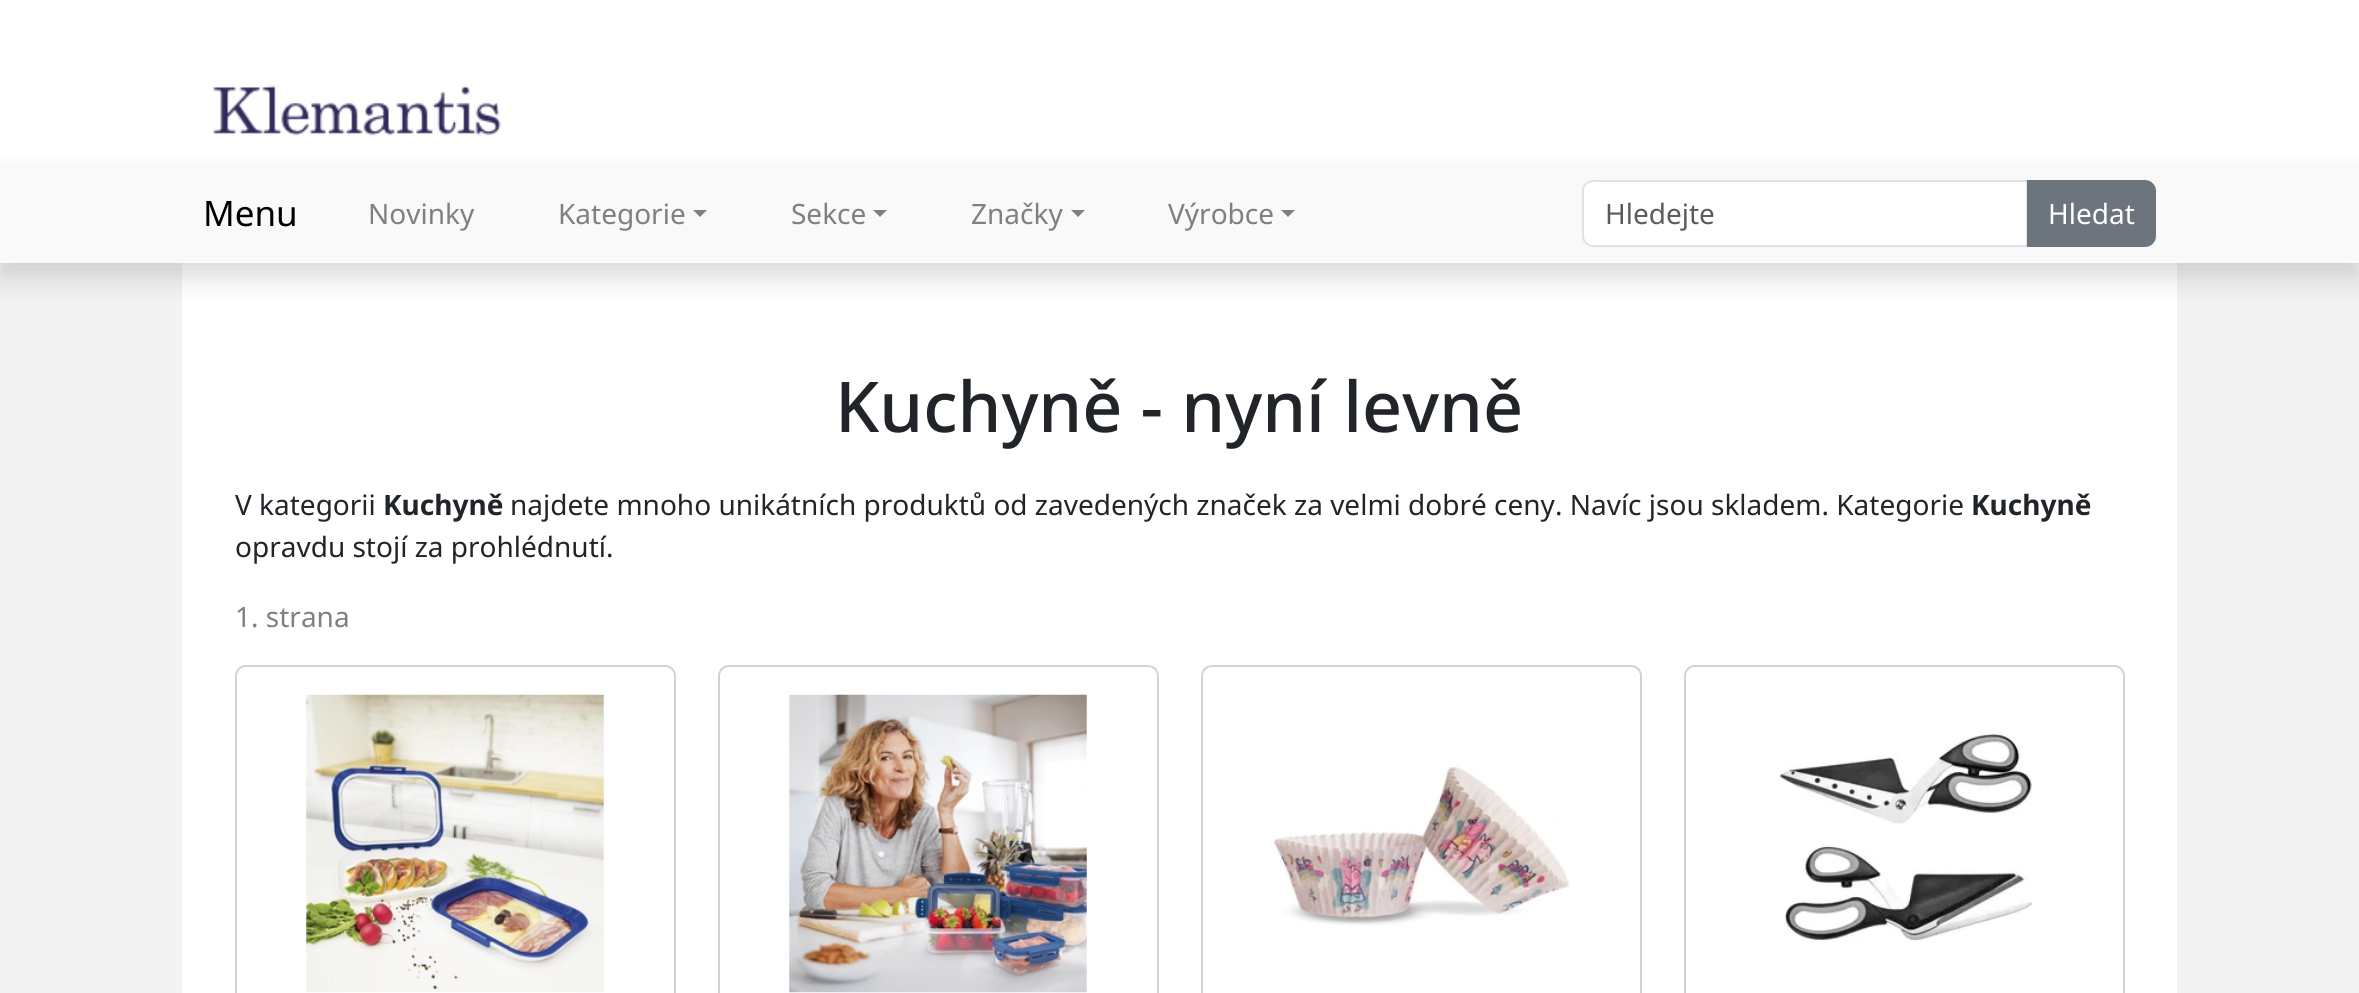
#include <cairo.h>
#include <math.h>
#include <stddef.h>


static void round_rect(cairo_t *cr, double x, double y, double w, double h, double r) {
    cairo_new_sub_path(cr);
    cairo_arc(cr, x + w - r, y + h - r, r, 0, M_PI / 2);
    cairo_arc(cr, x + r, y + h - r, r, M_PI / 2, M_PI);
    cairo_arc(cr, x + r, y + r, r, M_PI, 1.5 * M_PI);
    cairo_arc(cr, x + w - r, y + r, r, 1.5 * M_PI, 2 * M_PI);
    cairo_close_path(cr);
}

static void shadow(cairo_t *cr, double x, double y, double w, double h, double r, double blur, double alpha) {
    cairo_push_group_with_content(cr, CAIRO_CONTENT_ALPHA);
    cairo_set_operator(cr, CAIRO_OPERATOR_SOURCE);
    for (int i = 15; i >= -15 && fmin(w, h) + blur * i / 3 > 0; i -= 2) {
        double e = blur * i / 6;
        cairo_set_source_rgba(cr, 0, 0, 0, alpha * erfc((i - 1) / 8.5) / 2);
        round_rect(cr, x - e, y - e, w + 2 * e, h + 2 * e, fmax(0, fmin(r + e + blur * .6, fmin(w, h) / 2 + e)));
        cairo_fill(cr);
    }
    cairo_pattern_t *soft = cairo_pop_group(cr);
    cairo_mask(cr, soft);
    cairo_pattern_destroy(soft);
}

static void picture(cairo_t *cr, const char *path, double x, double y, double w, double h) {
    cairo_surface_t *image = cairo_image_surface_create_from_png(path);
    cairo_save(cr);
    cairo_set_source_surface(cr, image, x, y);
    cairo_rectangle(cr, x, y, w, h);
    cairo_fill(cr);
    cairo_restore(cr);
    cairo_surface_destroy(image);
}

int main(void) {
    cairo_surface_t *surface = cairo_image_surface_create(CAIRO_FORMAT_RGB24, 2359, 993);
    cairo_t *cr = cairo_create(surface);
    cairo_font_options_t *options = cairo_font_options_create();
    cairo_font_options_set_hint_metrics(options, CAIRO_HINT_METRICS_OFF);
    cairo_font_options_set_hint_style(options, CAIRO_HINT_STYLE_NONE);
    cairo_set_font_options(cr, options);
    cairo_set_miter_limit(cr, 4);
    cairo_set_source_rgb(cr, 0.953, 0.949, 0.953);
    cairo_paint(cr);
    cairo_set_source_rgb(cr, 1, 1, 1);
    cairo_rectangle(cr, 0, 0, 2359, 165);
    cairo_fill(cr);
    picture(cr, "img1.png", 213, 85, 288, 51);
    cairo_rectangle(cr, 182, 263, 1995, 730);
    cairo_fill(cr);
    cairo_set_source_rgb(cr, 0, 0, 0);
    shadow(cr, 0, 179, 2359, 98, 0, 14, 0.15);
    cairo_set_source_rgb(cr, 0.973, 0.976, 0.98);
    cairo_rectangle(cr, 0, 165, 2359, 98);
    cairo_fill(cr);
    cairo_select_font_face(cr, "Noto Sans", CAIRO_FONT_SLANT_NORMAL, CAIRO_FONT_WEIGHT_NORMAL);
    cairo_set_font_size(cr, 35);
    cairo_set_source_rgb(cr, 0, 0, 0);
    cairo_move_to(cr, 203, 226);
    cairo_show_text(cr, "Menu");
    cairo_set_font_size(cr, 28);
    cairo_set_source_rgb(cr, 0.502, 0.502, 0.502);
    cairo_move_to(cr, 368, 224);
    cairo_show_text(cr, "Novinky");
    cairo_move_to(cr, 558, 224);
    cairo_show_text(cr, "Kategorie");
    cairo_new_path(cr);
    cairo_move_to(cr, 693, 210);
    cairo_line_to(cr, 707, 210);
    cairo_line_to(cr, 700, 217);
    cairo_close_path(cr);
    cairo_fill(cr);
    cairo_move_to(cr, 791, 224);
    cairo_show_text(cr, "Sekce");
    cairo_new_path(cr);
    cairo_move_to(cr, 873, 210);
    cairo_line_to(cr, 887, 210);
    cairo_line_to(cr, 880, 217);
    cairo_close_path(cr);
    cairo_fill(cr);
    cairo_move_to(cr, 971, 224);
    cairo_show_text(cr, "Značky");
    cairo_new_path(cr);
    cairo_move_to(cr, 1071, 210);
    cairo_line_to(cr, 1085, 210);
    cairo_line_to(cr, 1078, 217);
    cairo_close_path(cr);
    cairo_fill(cr);
    cairo_move_to(cr, 1168, 224);
    cairo_show_text(cr, "Výrobce");
    cairo_new_path(cr);
    cairo_move_to(cr, 1281, 210);
    cairo_line_to(cr, 1295, 210);
    cairo_line_to(cr, 1288, 217);
    cairo_close_path(cr);
    cairo_fill(cr);
    cairo_set_source_rgb(cr, 1, 1, 1);
    cairo_new_path(cr);
    cairo_move_to(cr, 1593, 181);
    cairo_line_to(cr, 2027, 181);
    cairo_line_to(cr, 2027, 246);
    cairo_line_to(cr, 1593, 246);
    cairo_curve_to(cr, 1587.5, 246, 1583, 241.5, 1583, 236);
    cairo_line_to(cr, 1583, 191);
    cairo_curve_to(cr, 1583, 185.5, 1587.5, 181, 1593, 181);
    cairo_close_path(cr);
    cairo_fill_preserve(cr);
    cairo_set_source_rgb(cr, 0.871, 0.886, 0.902);
    cairo_stroke(cr);
    cairo_set_source_rgb(cr, 0.349, 0.361, 0.373);
    cairo_move_to(cr, 1605, 224);
    cairo_show_text(cr, "Hledejte");
    cairo_set_source_rgb(cr, 0.424, 0.459, 0.49);
    cairo_new_path(cr);
    cairo_move_to(cr, 2027, 180);
    cairo_line_to(cr, 2145, 180);
    cairo_curve_to(cr, 2151, 180, 2156, 185, 2156, 191);
    cairo_line_to(cr, 2156, 236);
    cairo_curve_to(cr, 2156, 242, 2151, 247, 2145, 247);
    cairo_line_to(cr, 2027, 247);
    cairo_close_path(cr);
    cairo_fill(cr);
    cairo_set_source_rgb(cr, 1, 1, 1);
    cairo_move_to(cr, 2048, 224);
    cairo_show_text(cr, "Hledat");
    cairo_select_font_face(cr, "Noto Sans Medium", CAIRO_FONT_SLANT_NORMAL, CAIRO_FONT_WEIGHT_NORMAL);
    cairo_set_font_size(cr, 70);
    cairo_set_source_rgb(cr, 0.129, 0.145, 0.161);
    cairo_move_to(cr, 835, 432);
    cairo_show_text(cr, "Kuchyně - nyní levně");
    cairo_select_font_face(cr, "Noto Sans", CAIRO_FONT_SLANT_NORMAL, CAIRO_FONT_WEIGHT_NORMAL);
    cairo_set_font_size(cr, 28);
    cairo_move_to(cr, 235, 515);
    cairo_show_text(cr, "V kategorii");
    cairo_select_font_face(cr, "Noto Sans", CAIRO_FONT_SLANT_NORMAL, CAIRO_FONT_WEIGHT_BOLD);
    cairo_move_to(cr, 383, 515);
    cairo_show_text(cr, "Kuchyně");
    cairo_select_font_face(cr, "Noto Sans", CAIRO_FONT_SLANT_NORMAL, CAIRO_FONT_WEIGHT_NORMAL);
    cairo_move_to(cr, 510, 515);
    cairo_show_text(cr, "najdete mnoho unikátních produktů od zavedených značek za velmi dobré ceny. Navíc jsou skladem. Kategorie");
    cairo_select_font_face(cr, "Noto Sans", CAIRO_FONT_SLANT_NORMAL, CAIRO_FONT_WEIGHT_BOLD);
    cairo_move_to(cr, 1971, 515);
    cairo_show_text(cr, "Kuchyně");
    cairo_select_font_face(cr, "Noto Sans", CAIRO_FONT_SLANT_NORMAL, CAIRO_FONT_WEIGHT_NORMAL);
    cairo_move_to(cr, 235, 557);
    cairo_show_text(cr, "opravdu stojí za prohlédnutí.");
    cairo_set_source_rgb(cr, 0.502, 0.502, 0.502);
    cairo_move_to(cr, 235, 627);
    cairo_show_text(cr, "1. strana");
    round_rect(cr, 236, 666, 439, 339, 10);
    cairo_set_source_rgb(cr, 0.824, 0.824, 0.824);
    cairo_stroke(cr);
    picture(cr, "img2.png", 306, 694, 298, 299);
    round_rect(cr, 719, 666, 439, 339, 10);
    cairo_stroke(cr);
    picture(cr, "img3.png", 789, 694, 298, 299);
    round_rect(cr, 1202, 666, 439, 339, 10);
    cairo_stroke(cr);
    picture(cr, "img4.png", 1273, 767, 297, 159);
    round_rect(cr, 1685, 666, 439, 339, 10);
    cairo_stroke(cr);
    picture(cr, "img5.png", 1779, 733, 254, 209);
    cairo_surface_write_to_png(surface, "page.png");
    cairo_font_options_destroy(options);
    cairo_destroy(cr);
    cairo_surface_destroy(surface);
    return 0;
}
